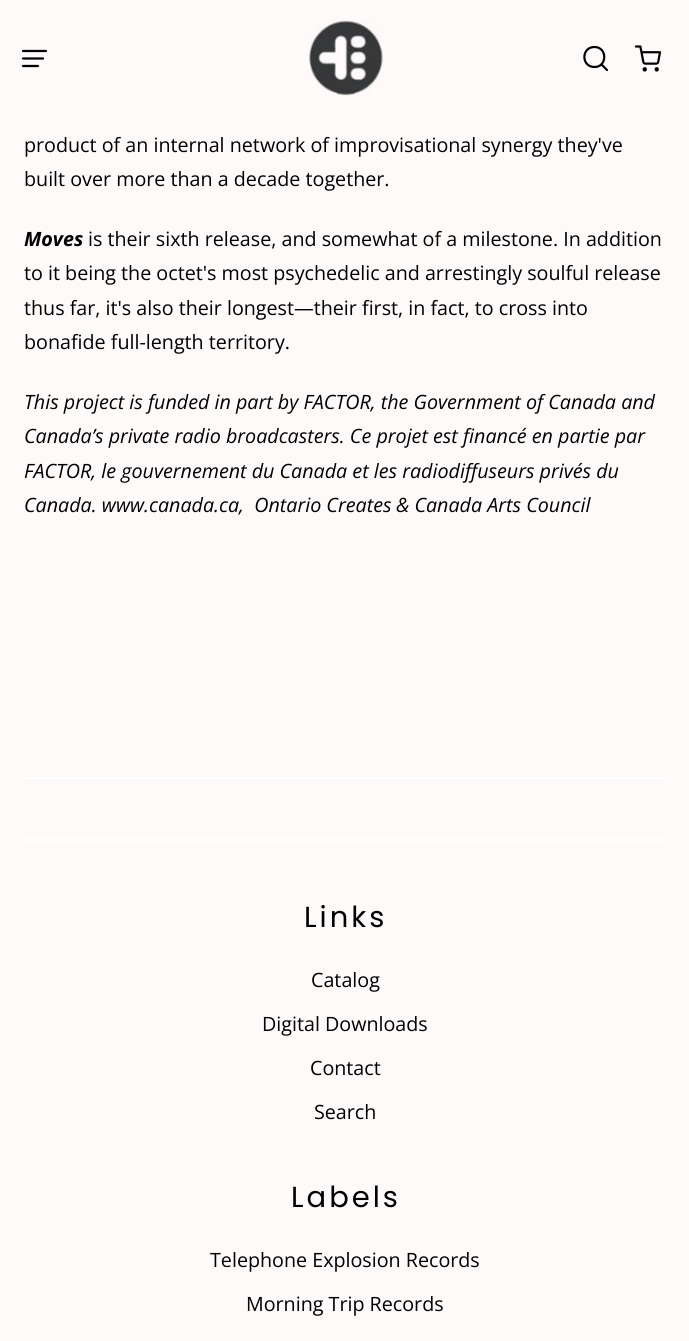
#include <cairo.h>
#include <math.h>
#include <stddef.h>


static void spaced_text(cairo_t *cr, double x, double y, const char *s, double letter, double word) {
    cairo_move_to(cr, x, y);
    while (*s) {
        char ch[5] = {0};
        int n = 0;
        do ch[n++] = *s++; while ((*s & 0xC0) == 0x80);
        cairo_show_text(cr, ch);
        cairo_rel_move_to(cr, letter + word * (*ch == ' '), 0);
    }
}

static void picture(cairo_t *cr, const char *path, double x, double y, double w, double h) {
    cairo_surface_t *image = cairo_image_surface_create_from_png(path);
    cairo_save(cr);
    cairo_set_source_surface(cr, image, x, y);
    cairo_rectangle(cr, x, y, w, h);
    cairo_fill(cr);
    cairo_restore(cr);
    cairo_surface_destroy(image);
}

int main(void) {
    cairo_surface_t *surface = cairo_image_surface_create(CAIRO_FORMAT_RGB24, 689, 1341);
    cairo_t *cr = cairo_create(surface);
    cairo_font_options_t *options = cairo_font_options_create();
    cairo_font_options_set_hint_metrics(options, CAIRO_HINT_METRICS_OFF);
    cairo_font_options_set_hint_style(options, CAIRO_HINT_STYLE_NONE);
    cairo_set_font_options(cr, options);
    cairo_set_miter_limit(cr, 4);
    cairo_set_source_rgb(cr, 1, 0.98, 0.98);
    cairo_paint(cr);
    cairo_new_path(cr);
    cairo_move_to(cr, 23, 51);
    cairo_line_to(cr, 46, 51);
    cairo_move_to(cr, 23, 58.5);
    cairo_line_to(cr, 43, 58.5);
    cairo_move_to(cr, 23, 66);
    cairo_line_to(cr, 38, 66);
    cairo_set_source_rgb(cr, 0, 0, 0);
    cairo_set_line_width(cr, 2.2);
    cairo_set_line_cap(cr, CAIRO_LINE_CAP_ROUND);
    cairo_set_line_join(cr, CAIRO_LINE_JOIN_ROUND);
    cairo_stroke(cr);
    picture(cr, "img1.png", 309, 20, 74, 76);
    cairo_new_path(cr);
    cairo_move_to(cr, 594.5, 47);
    cairo_curve_to(cr, 581, 47, 581, 67, 594.5, 67);
    cairo_curve_to(cr, 607.5, 67, 607.5, 47, 594.5, 47);
    cairo_close_path(cr);
    cairo_move_to(cr, 607, 70);
    cairo_line_to(cr, 601.5, 64.5);
    cairo_close_path(cr);
    cairo_stroke(cr);
    picture(cr, "img2.png", 634, 45, 28, 27);
    cairo_select_font_face(cr, "Open Sans", CAIRO_FONT_SLANT_NORMAL, CAIRO_FONT_WEIGHT_NORMAL);
    cairo_set_font_size(cr, 19.7);
    cairo_move_to(cr, 24, 152);
    cairo_show_text(cr, "product of an internal network of improvisational synergy they've");
    cairo_move_to(cr, 24, 186);
    cairo_show_text(cr, "built over more than a decade together.");
    cairo_select_font_face(cr, "Open Sans", CAIRO_FONT_SLANT_ITALIC, CAIRO_FONT_WEIGHT_BOLD);
    cairo_move_to(cr, 24, 246);
    cairo_show_text(cr, "Moves");
    cairo_select_font_face(cr, "Open Sans", CAIRO_FONT_SLANT_NORMAL, CAIRO_FONT_WEIGHT_NORMAL);
    cairo_move_to(cr, 88, 246);
    cairo_show_text(cr, "is their sixth release, and somewhat of a milestone. In addition");
    cairo_move_to(cr, 24, 280);
    cairo_show_text(cr, "to it being the octet's most psychedelic and arrestingly soulful release");
    cairo_move_to(cr, 24, 315);
    cairo_show_text(cr, "thus far, it's also their longest—their first, in fact, to cross into");
    cairo_move_to(cr, 24, 349);
    cairo_show_text(cr, "bonafide full-length territory.");
    cairo_select_font_face(cr, "Open Sans", CAIRO_FONT_SLANT_ITALIC, CAIRO_FONT_WEIGHT_NORMAL);
    cairo_move_to(cr, 24, 409);
    cairo_show_text(cr, "This project is funded in part by FACTOR, the Government of Canada and");
    cairo_move_to(cr, 24, 443);
    cairo_show_text(cr, "Canada’s private radio broadcasters. Ce projet est financé en partie par");
    cairo_move_to(cr, 24, 478);
    cairo_show_text(cr, "FACTOR, le gouvernement du Canada et les radiodiffuseurs privés du");
    cairo_move_to(cr, 24, 512);
    cairo_show_text(cr, "Canada. www.canada.ca,  Ontario Creates");
    cairo_move_to(cr, 396, 512);
    cairo_show_text(cr, "& Canada Arts Council");
    cairo_set_source_rgb(cr, 1, 1, 1);
    cairo_rectangle(cr, 24, 777, 642, 2);
    cairo_fill(cr);
    cairo_rectangle(cr, 23, 839, 645, 2);
    cairo_fill(cr);
    cairo_select_font_face(cr, "Poppins", CAIRO_FONT_SLANT_NORMAL, CAIRO_FONT_WEIGHT_NORMAL);
    cairo_set_font_size(cr, 29);
    cairo_set_source_rgb(cr, 0, 0, 0);
    spaced_text(cr, 304, 927, "Links", 3, 0);
    cairo_select_font_face(cr, "Open Sans", CAIRO_FONT_SLANT_NORMAL, CAIRO_FONT_WEIGHT_NORMAL);
    cairo_set_font_size(cr, 19.7);
    cairo_move_to(cr, 311, 987);
    cairo_show_text(cr, "Catalog");
    cairo_move_to(cr, 262, 1031);
    cairo_show_text(cr, "Digital Downloads");
    cairo_move_to(cr, 310, 1075);
    cairo_show_text(cr, "Contact");
    cairo_move_to(cr, 314, 1119);
    cairo_show_text(cr, "Search");
    cairo_select_font_face(cr, "Poppins", CAIRO_FONT_SLANT_NORMAL, CAIRO_FONT_WEIGHT_NORMAL);
    cairo_set_font_size(cr, 29);
    spaced_text(cr, 291, 1207, "Labels", 3, 0);
    cairo_select_font_face(cr, "Open Sans", CAIRO_FONT_SLANT_NORMAL, CAIRO_FONT_WEIGHT_NORMAL);
    cairo_set_font_size(cr, 19.7);
    cairo_move_to(cr, 210, 1267);
    cairo_show_text(cr, "Telephone Explosion Records");
    cairo_move_to(cr, 246, 1311);
    cairo_show_text(cr, "Morning Trip Records");
    cairo_surface_write_to_png(surface, "page.png");
    cairo_font_options_destroy(options);
    cairo_destroy(cr);
    cairo_surface_destroy(surface);
    return 0;
}
